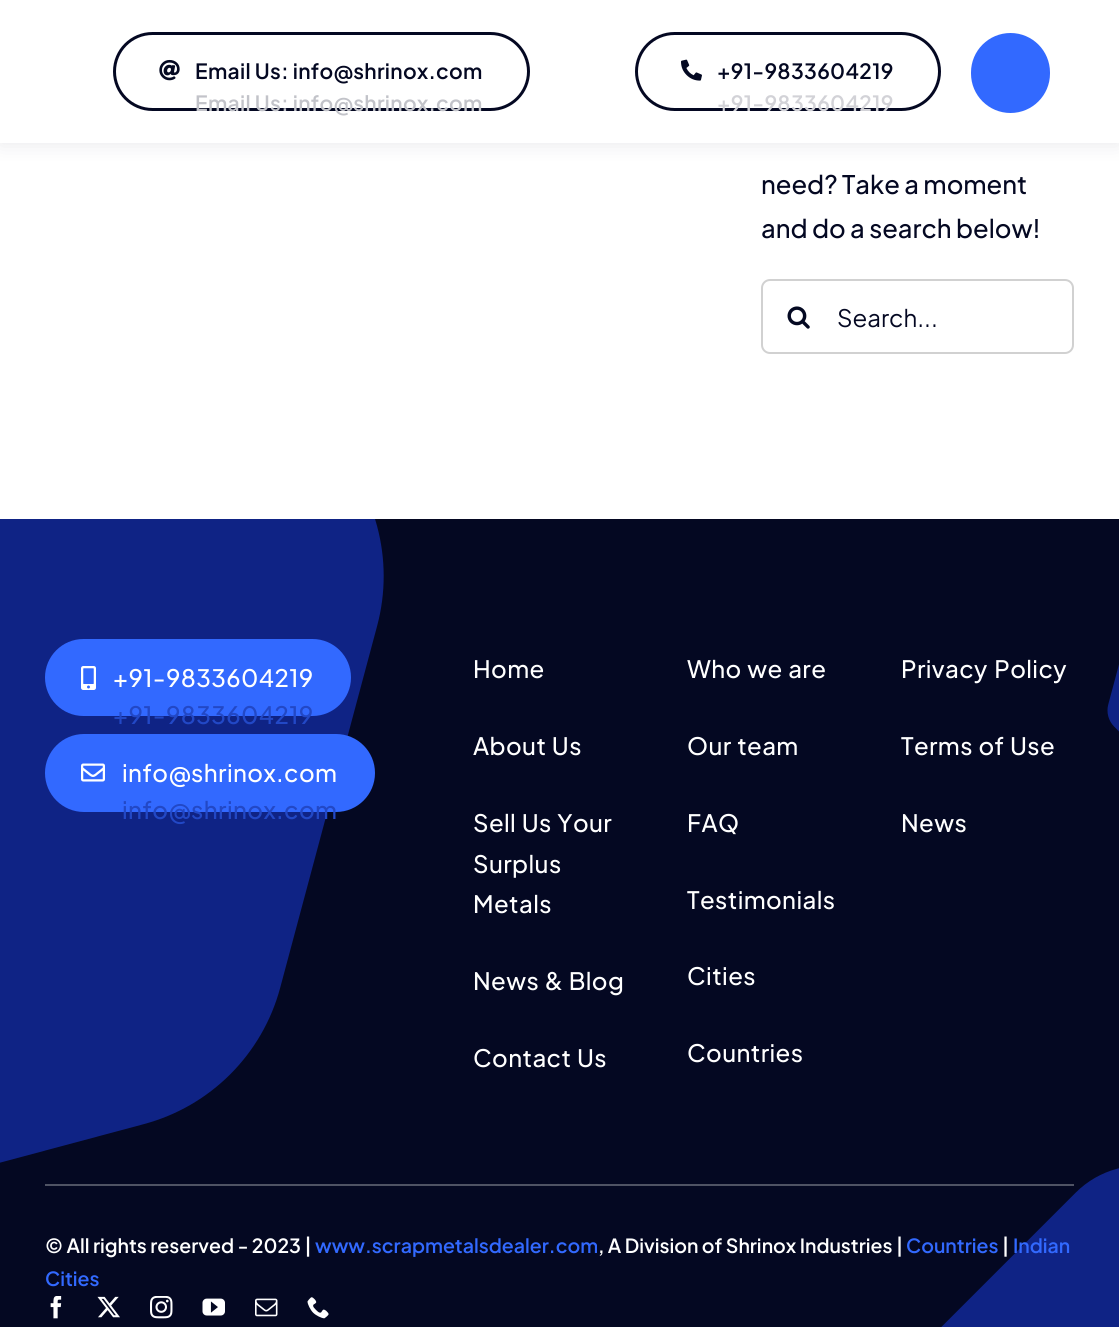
#include <cairo.h>
#include <math.h>
#include <stddef.h>


static void spaced_text(cairo_t *cr, double x, double y, const char *s, double letter, double word) {
    cairo_move_to(cr, x, y);
    while (*s) {
        char ch[5] = {0};
        int n = 0;
        do ch[n++] = *s++; while ((*s & 0xC0) == 0x80);
        cairo_show_text(cr, ch);
        cairo_rel_move_to(cr, letter + word * (*ch == ' '), 0);
    }
}

static void round_rect(cairo_t *cr, double x, double y, double w, double h, double r) {
    cairo_new_sub_path(cr);
    cairo_arc(cr, x + w - r, y + h - r, r, 0, M_PI / 2);
    cairo_arc(cr, x + r, y + h - r, r, M_PI / 2, M_PI);
    cairo_arc(cr, x + r, y + r, r, M_PI, 1.5 * M_PI);
    cairo_arc(cr, x + w - r, y + r, r, 1.5 * M_PI, 2 * M_PI);
    cairo_close_path(cr);
}

static void shadow(cairo_t *cr, double x, double y, double w, double h, double r, double blur, double alpha) {
    cairo_push_group_with_content(cr, CAIRO_CONTENT_ALPHA);
    cairo_set_operator(cr, CAIRO_OPERATOR_SOURCE);
    for (int i = 15; i >= -15 && fmin(w, h) + blur * i / 3 > 0; i -= 2) {
        double e = blur * i / 6;
        cairo_set_source_rgba(cr, 0, 0, 0, alpha * erfc((i - 1) / 8.5) / 2);
        round_rect(cr, x - e, y - e, w + 2 * e, h + 2 * e, fmax(0, fmin(r + e + blur * .6, fmin(w, h) / 2 + e)));
        cairo_fill(cr);
    }
    cairo_pattern_t *soft = cairo_pop_group(cr);
    cairo_mask(cr, soft);
    cairo_pattern_destroy(soft);
}

static void picture(cairo_t *cr, const char *path, double x, double y, double w, double h) {
    cairo_surface_t *image = cairo_image_surface_create_from_png(path);
    cairo_save(cr);
    cairo_set_source_surface(cr, image, x, y);
    cairo_rectangle(cr, x, y, w, h);
    cairo_fill(cr);
    cairo_restore(cr);
    cairo_surface_destroy(image);
}

int main(void) {
    cairo_surface_t *surface = cairo_image_surface_create(CAIRO_FORMAT_RGB24, 1119, 1327);
    cairo_t *cr = cairo_create(surface);
    cairo_font_options_t *options = cairo_font_options_create();
    cairo_font_options_set_hint_metrics(options, CAIRO_HINT_METRICS_OFF);
    cairo_font_options_set_hint_style(options, CAIRO_HINT_STYLE_NONE);
    cairo_set_font_options(cr, options);
    cairo_set_miter_limit(cr, 4);
    cairo_set_source_rgb(cr, 1, 1, 1);
    cairo_paint(cr);
    cairo_set_source_rgb(cr, 0.016, 0.031, 0.125);
    shadow(cr, 0, 0, 1119, 143, 0, 10, 0.1);
    cairo_set_source_rgb(cr, 1, 1, 1);
    cairo_rectangle(cr, 0, 0, 1119, 143);
    cairo_fill(cr);
    round_rect(cr, 114.5, 33.5, 414, 76, 38);
    cairo_set_source_rgb(cr, 0.016, 0.035, 0.133);
    cairo_set_line_width(cr, 3);
    cairo_stroke(cr);
    picture(cr, "img1.png", 159, 59, 21, 22);
    cairo_select_font_face(cr, "Plus Jakarta Sans SemiBold", CAIRO_FONT_SLANT_NORMAL, CAIRO_FONT_WEIGHT_NORMAL);
    cairo_set_font_size(cr, 21);
    spaced_text(cr, 195, 79, "Email Us: info@shrinox.com", 0.3, 0);
    cairo_set_source_rgb(cr, 0.761, 0.765, 0.788);
    spaced_text(cr, 195, 111, "Email Us: info@shrinox.com", 0.3, 0);
    round_rect(cr, 636.5, 33.5, 303, 76, 38);
    cairo_set_source_rgb(cr, 0.016, 0.035, 0.133);
    cairo_stroke(cr);
    picture(cr, "img2.png", 681, 59, 21, 22);
    spaced_text(cr, 717, 79, "+91-9833604219", 0.3, 0);
    cairo_set_source_rgb(cr, 0.824, 0.824, 0.843);
    spaced_text(cr, 717, 111, "+91-9833604219", 0.3, 0);
    cairo_set_source_rgb(cr, 0.196, 0.412, 1);
    round_rect(cr, 971, 33, 79, 80, 39.5);
    cairo_fill(cr);
    cairo_select_font_face(cr, "Plus Jakarta Sans Medium", CAIRO_FONT_SLANT_NORMAL, CAIRO_FONT_WEIGHT_NORMAL);
    cairo_set_font_size(cr, 25.5);
    cairo_set_source_rgb(cr, 0.016, 0.035, 0.133);
    cairo_move_to(cr, 761, 194);
    cairo_show_text(cr, "need? Take a moment");
    cairo_move_to(cr, 761, 238);
    cairo_show_text(cr, "and do a search below!");
    round_rect(cr, 762, 280, 311, 73, 8);
    cairo_set_source_rgb(cr, 0.82, 0.82, 0.82);
    cairo_set_line_width(cr, 2);
    cairo_stroke(cr);
    picture(cr, "img3.png", 787, 306, 23, 23);
    cairo_select_font_face(cr, "Plus Jakarta Sans", CAIRO_FONT_SLANT_NORMAL, CAIRO_FONT_WEIGHT_NORMAL);
    cairo_set_font_size(cr, 24);
    cairo_set_source_rgb(cr, 0.016, 0.035, 0.133);
    cairo_move_to(cr, 837, 327);
    cairo_show_text(cr, "Search...");
    cairo_rectangle(cr, 0, 519, 1119, 808);
    cairo_fill(cr);
    picture(cr, "img4.png", 0, 519, 1119, 808);
    cairo_set_source_rgb(cr, 0.196, 0.412, 1);
    round_rect(cr, 45, 639, 306, 77, 38.5);
    cairo_fill(cr);
    picture(cr, "img5.png", 81, 666, 15, 24);
    cairo_select_font_face(cr, "Plus Jakarta Sans Medium", CAIRO_FONT_SLANT_NORMAL, CAIRO_FONT_WEIGHT_NORMAL);
    cairo_set_source_rgb(cr, 1, 1, 1);
    spaced_text(cr, 113, 687, "+91-9833604219", 0.4, 0);
    cairo_set_source_rgb(cr, 0.133, 0.282, 0.776);
    spaced_text(cr, 113, 724, "+91-9833604219", 0.4, 0);
    cairo_set_source_rgb(cr, 0.196, 0.412, 1);
    round_rect(cr, 45, 734, 330, 78, 39);
    cairo_fill(cr);
    picture(cr, "img6.png", 81, 763, 24, 19);
    cairo_set_source_rgb(cr, 1, 1, 1);
    spaced_text(cr, 122, 782, "info@shrinox.com", 0.4, 0);
    cairo_set_source_rgb(cr, 0.133, 0.282, 0.776);
    spaced_text(cr, 122, 819, "info@shrinox.com", 0.4, 0);
    cairo_set_source_rgb(cr, 1, 1, 1);
    spaced_text(cr, 473, 678, "Home", 0.4, 0);
    spaced_text(cr, 473, 755, "About Us", 0.4, 1);
    spaced_text(cr, 473, 832, "Sell Us Your", 0.4, 1);
    spaced_text(cr, 473, 873, "Surplus", 0.4, 0);
    spaced_text(cr, 473, 913, "Metals", 0.4, 0);
    spaced_text(cr, 473, 990, "News & Blog", 0.4, 1);
    spaced_text(cr, 473, 1067, "Contact Us", 0.4, 1);
    spaced_text(cr, 687, 678, "Who we are", 0.4, 1);
    spaced_text(cr, 687, 755, "Our team", 0.4, 1);
    spaced_text(cr, 687, 832, "FAQ", 0.4, 0);
    spaced_text(cr, 687, 909, "Testimonials", 0.4, 0);
    spaced_text(cr, 687, 985, "Cities", 0.4, 0);
    spaced_text(cr, 687, 1062, "Countries", 0.4, 0);
    spaced_text(cr, 901, 678, "Privacy Policy", 0.4, 2);
    spaced_text(cr, 901, 755, "Terms of Use", 0.4, 1);
    spaced_text(cr, 901, 832, "News", 0.4, 0);
    cairo_set_source_rgb(cr, 0.31, 0.325, 0.392);
    cairo_rectangle(cr, 45, 1184, 1029, 2);
    cairo_fill(cr);
    cairo_select_font_face(cr, "Plus Jakarta Sans SemiBold", CAIRO_FONT_SLANT_NORMAL, CAIRO_FONT_WEIGHT_NORMAL);
    cairo_set_font_size(cr, 19.5);
    cairo_set_source_rgb(cr, 1, 1, 1);
    cairo_move_to(cr, 45, 1253);
    cairo_show_text(cr, "© All rights reserved - 2023 |");
    cairo_set_source_rgb(cr, 0.196, 0.412, 1);
    cairo_move_to(cr, 315, 1253);
    cairo_show_text(cr, "www.scrapmetalsdealer.com");
    cairo_set_source_rgb(cr, 1, 1, 1);
    cairo_move_to(cr, 598, 1253);
    cairo_show_text(cr, ", A Division of Shrinox Industries |");
    cairo_set_source_rgb(cr, 0.196, 0.412, 1);
    cairo_move_to(cr, 906, 1253);
    cairo_show_text(cr, "Countries");
    cairo_set_source_rgb(cr, 1, 1, 1);
    cairo_move_to(cr, 1002, 1253);
    cairo_show_text(cr, "|");
    cairo_set_source_rgb(cr, 0.196, 0.412, 1);
    cairo_move_to(cr, 1013, 1253);
    cairo_show_text(cr, "Indian");
    cairo_move_to(cr, 45, 1286);
    cairo_show_text(cr, "Cities");
    picture(cr, "img7.png", 50, 1296, 12, 23);
    picture(cr, "img8.png", 97, 1296, 23, 22);
    picture(cr, "img9.png", 150, 1296, 23, 23);
    picture(cr, "img10.png", 202, 1298, 23, 18);
    picture(cr, "img11.png", 255, 1298, 23, 19);
    picture(cr, "img12.png", 307, 1297, 22, 22);
    cairo_surface_write_to_png(surface, "page.png");
    cairo_font_options_destroy(options);
    cairo_destroy(cr);
    cairo_surface_destroy(surface);
    return 0;
}
